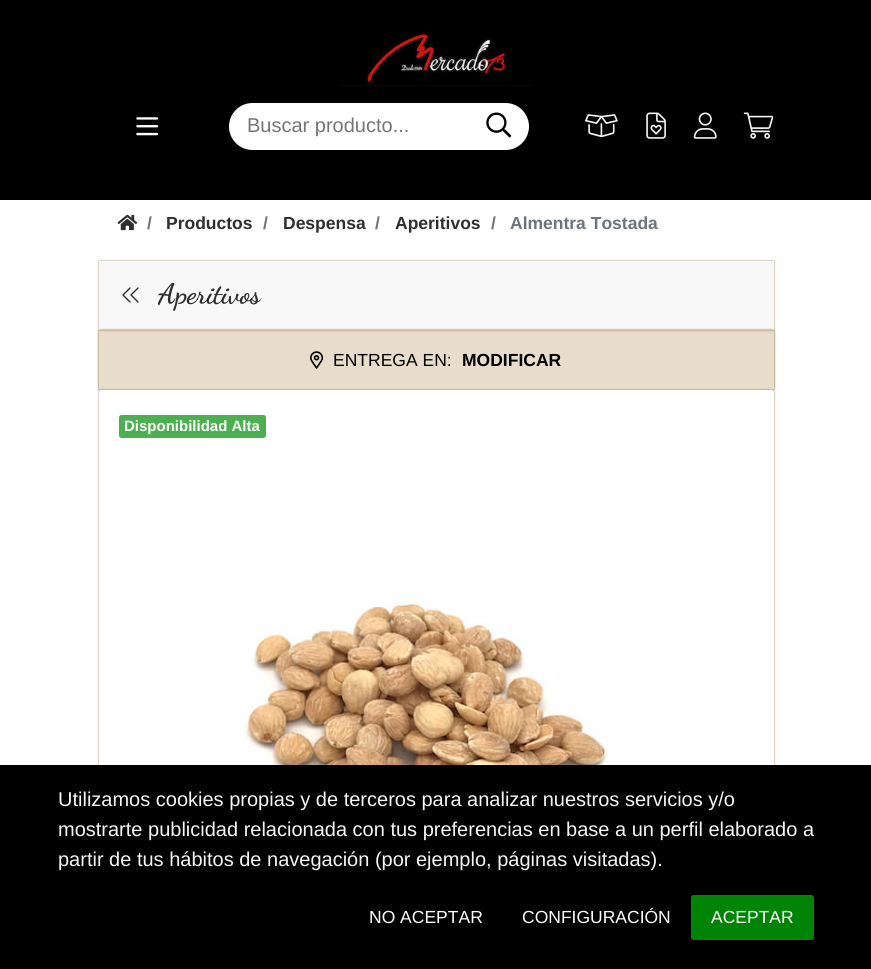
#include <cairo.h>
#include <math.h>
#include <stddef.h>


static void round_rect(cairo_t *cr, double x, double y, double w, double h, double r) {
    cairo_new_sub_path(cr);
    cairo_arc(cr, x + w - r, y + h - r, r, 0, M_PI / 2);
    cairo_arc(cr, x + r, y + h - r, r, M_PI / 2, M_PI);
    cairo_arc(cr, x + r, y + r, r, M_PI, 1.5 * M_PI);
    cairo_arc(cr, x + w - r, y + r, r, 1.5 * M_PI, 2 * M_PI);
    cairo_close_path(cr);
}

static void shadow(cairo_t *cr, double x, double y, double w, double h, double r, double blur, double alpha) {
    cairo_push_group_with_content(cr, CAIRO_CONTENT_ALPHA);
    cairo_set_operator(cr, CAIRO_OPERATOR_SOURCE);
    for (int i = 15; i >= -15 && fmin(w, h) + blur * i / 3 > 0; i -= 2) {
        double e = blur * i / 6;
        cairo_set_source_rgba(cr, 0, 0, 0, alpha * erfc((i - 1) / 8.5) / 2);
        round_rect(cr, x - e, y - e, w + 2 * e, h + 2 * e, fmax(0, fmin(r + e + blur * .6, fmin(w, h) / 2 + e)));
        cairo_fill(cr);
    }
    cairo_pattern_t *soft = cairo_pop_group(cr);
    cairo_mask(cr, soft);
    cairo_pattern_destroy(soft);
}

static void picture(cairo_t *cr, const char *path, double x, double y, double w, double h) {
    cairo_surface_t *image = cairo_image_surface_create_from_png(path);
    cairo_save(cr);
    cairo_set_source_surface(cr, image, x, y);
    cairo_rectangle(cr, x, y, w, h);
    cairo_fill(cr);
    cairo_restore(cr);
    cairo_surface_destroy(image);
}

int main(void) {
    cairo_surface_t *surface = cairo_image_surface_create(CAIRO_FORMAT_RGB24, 871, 969);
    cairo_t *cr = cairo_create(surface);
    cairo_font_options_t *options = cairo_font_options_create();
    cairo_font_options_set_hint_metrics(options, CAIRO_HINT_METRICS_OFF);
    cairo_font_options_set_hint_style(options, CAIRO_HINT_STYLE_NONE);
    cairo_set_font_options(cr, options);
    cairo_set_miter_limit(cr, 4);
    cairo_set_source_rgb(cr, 1, 1, 1);
    cairo_paint(cr);
    cairo_set_source_rgb(cr, 0, 0, 0);
    cairo_rectangle(cr, 0, 0, 871, 200);
    cairo_fill(cr);
    picture(cr, "img1.png", 339, 30, 194, 56);
    picture(cr, "img2.png", 136, 117, 23, 19);
    cairo_set_source_rgb(cr, 1, 1, 1);
    round_rect(cr, 229, 103, 300, 47, 23.5);
    cairo_fill(cr);
    cairo_select_font_face(cr, "Liberation Sans", CAIRO_FONT_SLANT_NORMAL, CAIRO_FONT_WEIGHT_NORMAL);
    cairo_set_font_size(cr, 20);
    cairo_set_source_rgb(cr, 0.459, 0.459, 0.459);
    cairo_move_to(cr, 247, 132);
    cairo_show_text(cr, "Buscar producto...");
    picture(cr, "img3.png", 486, 112, 26, 26);
    picture(cr, "img4.png", 585, 114, 33, 24);
    picture(cr, "img5.png", 646, 112, 20, 27);
    picture(cr, "img6.png", 693, 112, 24, 27);
    picture(cr, "img7.png", 743, 112, 31, 27);
    picture(cr, "img8.png", 117, 214, 21, 17);
    cairo_select_font_face(cr, "Liberation Sans", CAIRO_FONT_SLANT_NORMAL, CAIRO_FONT_WEIGHT_BOLD);
    cairo_set_font_size(cr, 17.5);
    cairo_set_source_rgb(cr, 0.424, 0.459, 0.49);
    cairo_move_to(cr, 147, 229);
    cairo_show_text(cr, "/");
    cairo_set_source_rgb(cr, 0.184, 0.184, 0.184);
    cairo_move_to(cr, 166, 229);
    cairo_show_text(cr, "Productos");
    cairo_set_source_rgb(cr, 0.424, 0.459, 0.49);
    cairo_move_to(cr, 263, 229);
    cairo_show_text(cr, "/");
    cairo_set_source_rgb(cr, 0.184, 0.184, 0.184);
    cairo_move_to(cr, 283, 229);
    cairo_show_text(cr, "Despensa");
    cairo_set_source_rgb(cr, 0.424, 0.459, 0.49);
    cairo_move_to(cr, 375, 229);
    cairo_show_text(cr, "/");
    cairo_set_source_rgb(cr, 0.184, 0.184, 0.184);
    cairo_move_to(cr, 395, 229);
    cairo_show_text(cr, "Aperitivos");
    cairo_set_source_rgb(cr, 0.424, 0.459, 0.49);
    cairo_move_to(cr, 491, 229);
    cairo_show_text(cr, "/");
    cairo_move_to(cr, 510, 229);
    cairo_show_text(cr, "Almentra Tostada");
    cairo_set_source_rgb(cr, 0.459, 0.318, 0.106);
    shadow(cr, 99, 330, 675, 60, 0, 1, 0.7);
    cairo_set_source_rgb(cr, 0.91, 0.863, 0.792);
    cairo_rectangle(cr, 99, 330, 675, 60);
    cairo_fill(cr);
    cairo_set_source_rgb(cr, 0.459, 0.318, 0.106);
    shadow(cr, 99, 261, 675, 69, 0, 1, 0.7);
    cairo_set_source_rgb(cr, 0.969, 0.969, 0.969);
    cairo_rectangle(cr, 99, 261, 675, 68);
    cairo_fill(cr);
    cairo_set_source_rgb(cr, 0.937, 0.937, 0.937);
    cairo_rectangle(cr, 99, 329, 675, 1);
    cairo_fill(cr);
    cairo_new_path(cr);
    cairo_move_to(cr, 130, 288);
    cairo_line_to(cr, 123, 295);
    cairo_line_to(cr, 130, 302);
    cairo_move_to(cr, 138, 288);
    cairo_line_to(cr, 131, 295);
    cairo_line_to(cr, 138, 302);
    cairo_set_source_rgb(cr, 0.184, 0.184, 0.184);
    cairo_set_line_width(cr, 1.4);
    cairo_set_line_cap(cr, CAIRO_LINE_CAP_ROUND);
    cairo_set_line_join(cr, CAIRO_LINE_JOIN_ROUND);
    cairo_stroke(cr);
    cairo_select_font_face(cr, "Dancing Script", CAIRO_FONT_SLANT_NORMAL, CAIRO_FONT_WEIGHT_BOLD);
    cairo_set_font_size(cr, 28);
    cairo_move_to(cr, 158, 303);
    cairo_show_text(cr, "Aperitivos");
    cairo_save(cr);
    cairo_set_fill_rule(cr, CAIRO_FILL_RULE_EVEN_ODD);
    cairo_new_path(cr);
    cairo_move_to(cr, 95, 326);
    cairo_line_to(cr, 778, 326);
    cairo_line_to(cr, 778, 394);
    cairo_line_to(cr, 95, 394);
    cairo_close_path(cr);
    cairo_move_to(cr, 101.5, 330);
    cairo_line_to(cr, 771.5, 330);
    cairo_curve_to(cr, 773, 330, 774, 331, 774, 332.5);
    cairo_line_to(cr, 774, 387.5);
    cairo_curve_to(cr, 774, 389, 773, 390, 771.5, 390);
    cairo_line_to(cr, 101.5, 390);
    cairo_curve_to(cr, 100, 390, 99, 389, 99, 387.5);
    cairo_line_to(cr, 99, 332.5);
    cairo_curve_to(cr, 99, 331, 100, 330, 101.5, 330);
    cairo_close_path(cr);
    cairo_clip(cr);
    cairo_set_source_rgb(cr, 0.459, 0.318, 0.106);
    shadow(cr, 99, 330, 675, 60, 2.5, 1, 0.7);
    cairo_restore(cr);
    picture(cr, "img9.png", 310, 351, 14, 18);
    cairo_select_font_face(cr, "Liberation Sans", CAIRO_FONT_SLANT_NORMAL, CAIRO_FONT_WEIGHT_NORMAL);
    cairo_set_font_size(cr, 17.5);
    cairo_set_source_rgb(cr, 0, 0, 0);
    cairo_move_to(cr, 333, 366);
    cairo_show_text(cr, "ENTREGA EN:");
    cairo_select_font_face(cr, "Liberation Sans", CAIRO_FONT_SLANT_NORMAL, CAIRO_FONT_WEIGHT_BOLD);
    cairo_move_to(cr, 462, 366);
    cairo_show_text(cr, "MODIFICAR");
    cairo_set_source_rgb(cr, 0.459, 0.318, 0.106);
    shadow(cr, 99, 390, 675, 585, 2.5, 1, 0.7);
    cairo_set_source_rgb(cr, 1, 1, 1);
    round_rect(cr, 99, 390, 675, 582, 2.5);
    cairo_fill(cr);
    cairo_set_source_rgb(cr, 0.298, 0.686, 0.314);
    round_rect(cr, 119, 415, 147, 23, 2.5);
    cairo_fill(cr);
    cairo_set_font_size(cr, 15);
    cairo_set_source_rgb(cr, 1, 1, 1);
    cairo_move_to(cr, 124, 431);
    cairo_show_text(cr, "Disponibilidad Alta");
    picture(cr, "img10.png", 242, 600, 367, 165);
    cairo_set_source_rgb(cr, 0, 0, 0);
    cairo_rectangle(cr, 0, 765, 871, 204);
    cairo_fill(cr);
    cairo_select_font_face(cr, "Liberation Sans", CAIRO_FONT_SLANT_NORMAL, CAIRO_FONT_WEIGHT_NORMAL);
    cairo_set_font_size(cr, 20);
    cairo_set_source_rgb(cr, 0.961, 0.961, 0.961);
    cairo_move_to(cr, 58, 806);
    cairo_show_text(cr, "Utilizamos cookies propias y de terceros para analizar nuestros servicios y/o");
    cairo_move_to(cr, 58, 836);
    cairo_show_text(cr, "mostrarte publicidad relacionada con tus preferencias en base a un perfil elaborado a");
    cairo_move_to(cr, 58, 866);
    cairo_show_text(cr, "partir de tus hábitos de navegación (por ejemplo, páginas visitadas).");
    cairo_set_font_size(cr, 17.5);
    cairo_set_source_rgb(cr, 1, 1, 1);
    cairo_move_to(cr, 369, 923);
    cairo_show_text(cr, "NO ACEPTAR");
    cairo_move_to(cr, 522, 923);
    cairo_show_text(cr, "CONFIGURACIÓN");
    cairo_set_source_rgb(cr, 0, 0.518, 0.02);
    round_rect(cr, 691, 895, 123, 45, 2.5);
    cairo_fill(cr);
    cairo_set_source_rgb(cr, 1, 1, 1);
    cairo_move_to(cr, 711, 923);
    cairo_show_text(cr, "ACEPTAR");
    cairo_surface_write_to_png(surface, "page.png");
    cairo_font_options_destroy(options);
    cairo_destroy(cr);
    cairo_surface_destroy(surface);
    return 0;
}
